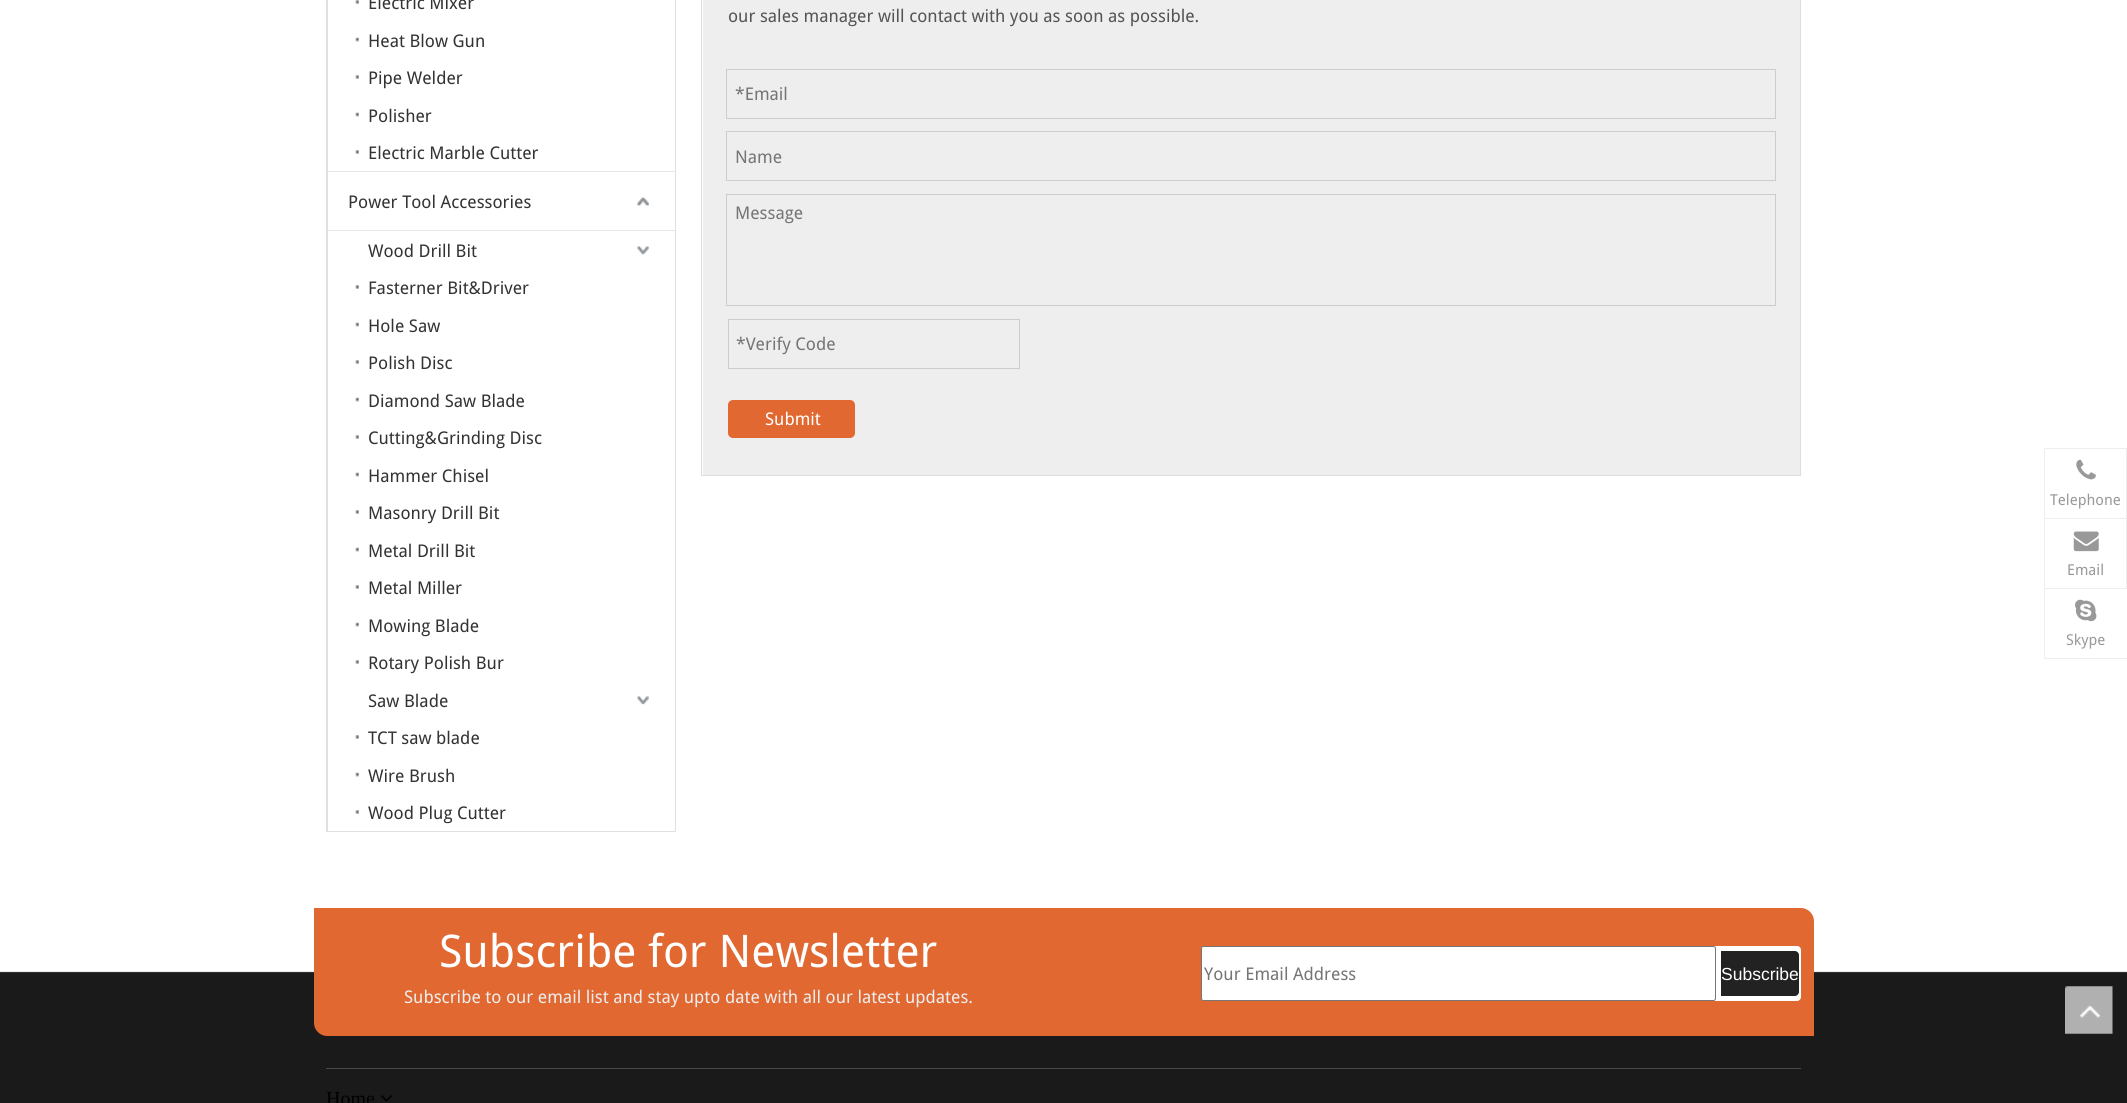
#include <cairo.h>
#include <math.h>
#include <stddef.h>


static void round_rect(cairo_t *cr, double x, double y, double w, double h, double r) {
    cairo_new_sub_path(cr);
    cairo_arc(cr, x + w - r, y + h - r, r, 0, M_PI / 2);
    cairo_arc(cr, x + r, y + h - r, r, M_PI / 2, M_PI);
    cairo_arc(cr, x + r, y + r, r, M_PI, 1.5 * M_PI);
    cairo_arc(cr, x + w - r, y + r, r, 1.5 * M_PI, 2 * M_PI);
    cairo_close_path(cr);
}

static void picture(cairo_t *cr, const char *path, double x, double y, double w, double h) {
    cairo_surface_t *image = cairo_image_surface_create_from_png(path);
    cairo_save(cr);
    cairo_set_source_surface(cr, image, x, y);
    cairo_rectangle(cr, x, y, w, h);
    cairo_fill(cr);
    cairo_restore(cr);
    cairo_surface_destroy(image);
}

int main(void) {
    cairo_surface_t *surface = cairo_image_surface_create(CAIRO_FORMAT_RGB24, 2127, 1103);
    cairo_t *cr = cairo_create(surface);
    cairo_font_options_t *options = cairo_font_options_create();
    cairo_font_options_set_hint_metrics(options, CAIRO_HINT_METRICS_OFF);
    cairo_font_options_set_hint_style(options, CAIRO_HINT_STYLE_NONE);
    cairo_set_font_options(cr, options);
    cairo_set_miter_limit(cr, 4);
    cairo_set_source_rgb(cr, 1, 1, 1);
    cairo_paint(cr);
    cairo_set_source_rgb(cr, 0.878, 0.878, 0.878);
    cairo_new_path(cr);
    cairo_move_to(cr, 676, -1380);
    cairo_line_to(cr, 676, 832);
    cairo_line_to(cr, 675, 831);
    cairo_line_to(cr, 675, -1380);
    cairo_close_path(cr);
    cairo_fill(cr);
    cairo_set_source_rgba(cr, 0.867, 0.867, 0.867, 0.9);
    cairo_new_path(cr);
    cairo_move_to(cr, 676, 832);
    cairo_line_to(cr, 326, 832);
    cairo_line_to(cr, 328, 831);
    cairo_line_to(cr, 675, 831);
    cairo_close_path(cr);
    cairo_fill(cr);
    cairo_new_path(cr);
    cairo_move_to(cr, 326, 832);
    cairo_line_to(cr, 326, -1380);
    cairo_line_to(cr, 328, -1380);
    cairo_line_to(cr, 328, 831);
    cairo_close_path(cr);
    cairo_fill(cr);
    picture(cr, "img1.png", 355, 0, 4, 4);
    cairo_select_font_face(cr, "Droid Sans", CAIRO_FONT_SLANT_NORMAL, CAIRO_FONT_WEIGHT_NORMAL);
    cairo_set_font_size(cr, 17.5);
    cairo_set_source_rgb(cr, 0.2, 0.2, 0.2);
    cairo_move_to(cr, 368, 9);
    cairo_show_text(cr, "Electric Mixer");
    picture(cr, "img2.png", 355, 37, 4, 5);
    cairo_move_to(cr, 368, 47);
    cairo_show_text(cr, "Heat Blow Gun");
    picture(cr, "img1.png", 355, 75, 4, 4);
    cairo_move_to(cr, 368, 84);
    cairo_show_text(cr, "Pipe Welder");
    picture(cr, "img2.png", 355, 112, 4, 5);
    cairo_move_to(cr, 368, 122);
    cairo_show_text(cr, "Polisher");
    picture(cr, "img1.png", 355, 150, 4, 4);
    cairo_move_to(cr, 368, 159);
    cairo_show_text(cr, "Electric Marble Cutter");
    cairo_set_source_rgb(cr, 0.906, 0.906, 0.906);
    cairo_rectangle(cr, 328, 171, 347, 1);
    cairo_fill(cr);
    cairo_set_source_rgb(cr, 0.2, 0.2, 0.2);
    cairo_move_to(cr, 348, 208);
    cairo_show_text(cr, "Power Tool Accessories");
    picture(cr, "img3.png", 637, 197, 12, 9);
    cairo_set_source_rgb(cr, 0.906, 0.906, 0.906);
    cairo_rectangle(cr, 328, 230, 347, 1);
    cairo_fill(cr);
    cairo_set_source_rgb(cr, 0.2, 0.2, 0.2);
    cairo_move_to(cr, 368, 257);
    cairo_show_text(cr, "Wood Drill Bit");
    picture(cr, "img4.png", 637, 246, 12, 9);
    picture(cr, "img1.png", 355, 285, 4, 4);
    cairo_move_to(cr, 368, 294);
    cairo_show_text(cr, "Fasterner Bit&Driver");
    picture(cr, "img2.png", 355, 322, 4, 5);
    cairo_move_to(cr, 368, 332);
    cairo_show_text(cr, "Hole Saw");
    picture(cr, "img1.png", 355, 360, 4, 4);
    cairo_move_to(cr, 368, 369);
    cairo_show_text(cr, "Polish Disc");
    picture(cr, "img2.png", 355, 397, 4, 5);
    cairo_move_to(cr, 368, 407);
    cairo_show_text(cr, "Diamond Saw Blade");
    picture(cr, "img1.png", 355, 435, 4, 4);
    cairo_move_to(cr, 368, 444);
    cairo_show_text(cr, "Cutting&Grinding Disc");
    picture(cr, "img2.png", 355, 472, 4, 5);
    cairo_move_to(cr, 368, 482);
    cairo_show_text(cr, "Hammer Chisel");
    picture(cr, "img1.png", 355, 510, 4, 4);
    cairo_move_to(cr, 368, 519);
    cairo_show_text(cr, "Masonry Drill Bit");
    picture(cr, "img2.png", 355, 547, 4, 5);
    cairo_move_to(cr, 368, 557);
    cairo_show_text(cr, "Metal Drill Bit");
    picture(cr, "img1.png", 355, 585, 4, 4);
    cairo_move_to(cr, 368, 594);
    cairo_show_text(cr, "Metal Miller");
    picture(cr, "img2.png", 355, 622, 4, 5);
    cairo_move_to(cr, 368, 632);
    cairo_show_text(cr, "Mowing Blade");
    picture(cr, "img1.png", 355, 660, 4, 4);
    cairo_move_to(cr, 368, 669);
    cairo_show_text(cr, "Rotary Polish Bur");
    cairo_move_to(cr, 368, 707);
    cairo_show_text(cr, "Saw Blade");
    picture(cr, "img4.png", 637, 696, 12, 9);
    picture(cr, "img1.png", 355, 735, 4, 4);
    cairo_move_to(cr, 368, 744);
    cairo_show_text(cr, "TCT saw blade");
    picture(cr, "img2.png", 355, 772, 4, 5);
    cairo_move_to(cr, 368, 782);
    cairo_show_text(cr, "Wire Brush");
    picture(cr, "img1.png", 355, 810, 4, 4);
    cairo_move_to(cr, 368, 819);
    cairo_show_text(cr, "Wood Plug Cutter");
    cairo_set_source_rgb(cr, 0.933, 0.933, 0.933);
    cairo_rectangle(cr, 703, 0, 1097, 475);
    cairo_fill(cr);
    cairo_set_source_rgb(cr, 0.867, 0.867, 0.867);
    cairo_rectangle(cr, 1800, 0, 1, 476);
    cairo_fill(cr);
    cairo_rectangle(cr, 701, 0, 1, 31);
    cairo_fill(cr);
    cairo_set_source_rgb(cr, 0.329, 0.329, 0.329);
    cairo_move_to(cr, 728, 22);
    cairo_show_text(cr, "our sales manager will contact with you as soon as possible.");
    cairo_set_source_rgb(cr, 0.867, 0.867, 0.867);
    cairo_rectangle(cr, 701, 475, 1100, 1);
    cairo_fill(cr);
    cairo_rectangle(cr, 701, 31, 1, 445);
    cairo_fill(cr);
    cairo_rectangle(cr, 726.5, 69.5, 1049, 49);
    cairo_set_source_rgb(cr, 0.8, 0.8, 0.8);
    cairo_set_line_width(cr, 1);
    cairo_stroke(cr);
    cairo_set_source_rgb(cr, 0.459, 0.459, 0.459);
    cairo_move_to(cr, 735, 100);
    cairo_show_text(cr, "*Email");
    cairo_rectangle(cr, 726.5, 131.5, 1049, 49);
    cairo_set_source_rgb(cr, 0.8, 0.8, 0.8);
    cairo_stroke(cr);
    cairo_set_source_rgb(cr, 0.459, 0.459, 0.459);
    cairo_move_to(cr, 735, 163);
    cairo_show_text(cr, "Name");
    cairo_rectangle(cr, 726.5, 194.5, 1049, 111);
    cairo_set_source_rgb(cr, 0.8, 0.8, 0.8);
    cairo_stroke(cr);
    cairo_set_source_rgb(cr, 0.459, 0.459, 0.459);
    cairo_move_to(cr, 735, 219);
    cairo_show_text(cr, "Message");
    cairo_rectangle(cr, 728.5, 319.5, 291, 49);
    cairo_set_source_rgb(cr, 0.8, 0.8, 0.8);
    cairo_stroke(cr);
    cairo_set_source_rgb(cr, 0.459, 0.459, 0.459);
    cairo_move_to(cr, 736, 350);
    cairo_show_text(cr, "*Verify Code");
    cairo_set_source_rgb(cr, 0.882, 0.408, 0.192);
    round_rect(cr, 728, 400, 127, 38, 5);
    cairo_fill(cr);
    cairo_set_source_rgb(cr, 1, 1, 1);
    cairo_move_to(cr, 765, 425);
    cairo_show_text(cr, "Submit");
    cairo_set_source_rgb(cr, 0.933, 0.933, 0.933);
    cairo_rectangle(cr, 2044, 448, 83, 1);
    cairo_fill(cr);
    cairo_rectangle(cr, 2126, 448, 1, 70);
    cairo_fill(cr);
    cairo_rectangle(cr, 2044, 448, 1, 70);
    cairo_fill(cr);
    picture(cr, "img5.png", 2076, 459, 20, 21);
    cairo_set_font_size(cr, 15);
    cairo_set_source_rgb(cr, 0.6, 0.6, 0.6);
    cairo_move_to(cr, 2050, 505);
    cairo_show_text(cr, "Telephone");
    cairo_set_source_rgb(cr, 0.933, 0.933, 0.933);
    cairo_rectangle(cr, 2044, 518, 83, 1);
    cairo_fill(cr);
    cairo_rectangle(cr, 2126, 518, 1, 70);
    cairo_fill(cr);
    cairo_rectangle(cr, 2044, 518, 1, 70);
    cairo_fill(cr);
    picture(cr, "img6.png", 2073, 531, 26, 21);
    cairo_set_source_rgb(cr, 0.6, 0.6, 0.6);
    cairo_move_to(cr, 2067, 575);
    cairo_show_text(cr, "Email");
    cairo_rectangle(cr, 2044.5, 588.5, 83, 70);
    cairo_set_source_rgb(cr, 0.933, 0.933, 0.933);
    cairo_stroke(cr);
    picture(cr, "img7.png", 2075, 599, 22, 23);
    cairo_set_source_rgb(cr, 0.6, 0.6, 0.6);
    cairo_move_to(cr, 2066, 645);
    cairo_show_text(cr, "Skype");
    picture(cr, "img8.png", 0, 971, 2127, 65);
    cairo_set_source_rgb(cr, 0.882, 0.408, 0.192);
    cairo_new_path(cr);
    cairo_move_to(cr, 314, 908);
    cairo_line_to(cr, 1801, 908);
    cairo_curve_to(cr, 1808, 908, 1814, 914, 1814, 921);
    cairo_line_to(cr, 1814, 1036);
    cairo_line_to(cr, 327, 1036);
    cairo_curve_to(cr, 320, 1036, 314, 1030, 314, 1023);
    cairo_close_path(cr);
    cairo_fill(cr);
    cairo_set_font_size(cr, 45);
    cairo_set_source_rgb(cr, 1, 1, 1);
    cairo_move_to(cr, 439, 967);
    cairo_show_text(cr, "Subscribe for Newsletter");
    cairo_set_font_size(cr, 17.5);
    cairo_set_source_rgb(cr, 0.933, 0.933, 0.933);
    cairo_move_to(cr, 404, 1003);
    cairo_show_text(cr, "Subscribe to our email list and stay upto date with all our latest updates.");
    cairo_set_source_rgb(cr, 1, 1, 1);
    round_rect(cr, 1201, 946, 600, 55, 4);
    cairo_fill(cr);
    round_rect(cr, 1201.5, 946.5, 514, 54, 2);
    cairo_fill_preserve(cr);
    cairo_set_source_rgb(cr, 0.463, 0.463, 0.463);
    cairo_stroke(cr);
    cairo_set_source_rgb(cr, 0.459, 0.459, 0.459);
    cairo_move_to(cr, 1204, 980);
    cairo_show_text(cr, "Your Email Address");
    cairo_set_source_rgb(cr, 0.133, 0.133, 0.133);
    cairo_new_path(cr);
    cairo_move_to(cr, 1721, 951);
    cairo_line_to(cr, 1795, 951);
    cairo_curve_to(cr, 1797, 951, 1799, 953, 1799, 955);
    cairo_line_to(cr, 1799, 992);
    cairo_curve_to(cr, 1799, 994, 1797, 996, 1795, 996);
    cairo_line_to(cr, 1721, 996);
    cairo_close_path(cr);
    cairo_fill(cr);
    cairo_select_font_face(cr, "Liberation Sans", CAIRO_FONT_SLANT_NORMAL, CAIRO_FONT_WEIGHT_NORMAL);
    cairo_set_source_rgb(cr, 1, 1, 1);
    cairo_move_to(cr, 1721, 980);
    cairo_show_text(cr, "Subscribe");
    cairo_set_source_rgb(cr, 0.102, 0.102, 0.102);
    cairo_rectangle(cr, 0, 1036, 2127, 67);
    cairo_fill(cr);
    cairo_set_source_rgb(cr, 0.286, 0.286, 0.286);
    cairo_rectangle(cr, 326, 1068, 1475, 1);
    cairo_fill(cr);
    cairo_select_font_face(cr, "Liberation Serif", CAIRO_FONT_SLANT_NORMAL, CAIRO_FONT_WEIGHT_NORMAL);
    cairo_set_font_size(cr, 20);
    cairo_set_source_rgb(cr, 0, 0, 0);
    cairo_move_to(cr, 326, 1105);
    cairo_show_text(cr, "Home");
    picture(cr, "img9.png", 381, 1095, 11, 7);
    picture(cr, "img10.png", 2065, 986, 48, 48);
    cairo_surface_write_to_png(surface, "page.png");
    cairo_font_options_destroy(options);
    cairo_destroy(cr);
    cairo_surface_destroy(surface);
    return 0;
}
